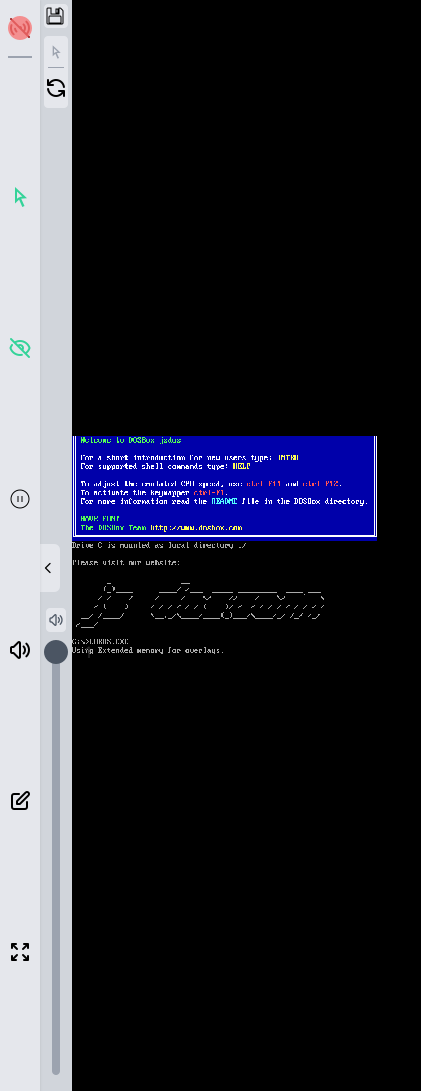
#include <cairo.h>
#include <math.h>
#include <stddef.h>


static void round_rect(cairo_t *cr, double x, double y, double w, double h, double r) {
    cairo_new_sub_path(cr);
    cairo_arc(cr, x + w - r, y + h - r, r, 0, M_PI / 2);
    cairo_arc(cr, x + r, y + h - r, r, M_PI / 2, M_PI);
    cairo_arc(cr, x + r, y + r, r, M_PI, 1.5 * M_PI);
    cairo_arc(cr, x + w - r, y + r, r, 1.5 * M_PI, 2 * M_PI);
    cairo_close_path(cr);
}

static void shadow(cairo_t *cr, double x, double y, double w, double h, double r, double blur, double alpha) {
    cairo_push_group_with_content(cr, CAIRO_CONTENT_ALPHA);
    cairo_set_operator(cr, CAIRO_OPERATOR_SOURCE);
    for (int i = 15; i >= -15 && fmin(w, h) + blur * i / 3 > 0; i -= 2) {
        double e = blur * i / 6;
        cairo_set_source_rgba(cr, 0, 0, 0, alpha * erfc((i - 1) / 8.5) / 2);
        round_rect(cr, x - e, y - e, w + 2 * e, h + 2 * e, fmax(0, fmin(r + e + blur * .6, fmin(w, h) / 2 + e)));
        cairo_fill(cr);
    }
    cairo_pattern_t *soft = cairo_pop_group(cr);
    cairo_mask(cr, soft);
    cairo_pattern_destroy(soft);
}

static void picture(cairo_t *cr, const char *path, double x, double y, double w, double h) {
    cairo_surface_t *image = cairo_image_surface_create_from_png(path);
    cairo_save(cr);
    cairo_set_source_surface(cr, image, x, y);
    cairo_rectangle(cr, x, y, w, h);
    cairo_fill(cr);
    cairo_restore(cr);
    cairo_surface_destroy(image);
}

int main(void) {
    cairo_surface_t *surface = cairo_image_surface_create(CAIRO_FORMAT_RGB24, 421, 1091);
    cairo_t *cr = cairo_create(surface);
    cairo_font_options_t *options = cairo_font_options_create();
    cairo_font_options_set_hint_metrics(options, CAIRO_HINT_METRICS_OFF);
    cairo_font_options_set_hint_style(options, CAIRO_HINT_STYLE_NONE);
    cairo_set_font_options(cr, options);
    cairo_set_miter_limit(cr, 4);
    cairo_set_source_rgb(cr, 0.82, 0.835, 0.859);
    cairo_paint(cr);
    cairo_set_source_rgb(cr, 0, 0, 0);
    cairo_rectangle(cr, 72, 0, 349, 1091);
    cairo_fill(cr);
    picture(cr, "img1.png", 72, 436, 305, 218);
    cairo_set_source_rgb(cr, 0.898, 0.906, 0.922);
    round_rect(cr, 44, 4, 24, 24, 4);
    cairo_fill(cr);
    round_rect(cr, 44, 36, 24, 72, 4);
    cairo_fill(cr);
    cairo_new_path(cr);
    cairo_move_to(cr, 40, 544);
    cairo_line_to(cr, 54, 544);
    cairo_curve_to(cr, 57.5, 544, 60, 546.5, 60, 550);
    cairo_line_to(cr, 60, 586);
    cairo_curve_to(cr, 60, 589.5, 57.5, 592, 54, 592);
    cairo_line_to(cr, 40, 592);
    cairo_close_path(cr);
    cairo_fill(cr);
    cairo_set_source_rgb(cr, 0, 0, 0);
    shadow(cr, 0, 1, 40, 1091, 0, 1.5, 0.1);
    cairo_set_source_rgb(cr, 0.898, 0.906, 0.922);
    cairo_rectangle(cr, 0, 0, 40, 1091);
    cairo_fill(cr);
    picture(cr, "img2.png", 10, 18, 20, 20);
    cairo_set_source_rgba(cr, 0.973, 0.443, 0.443, 0.75);
    cairo_arc(cr, 20, 28, 12, 0, 2 * M_PI);
    cairo_fill(cr);
    cairo_set_source_rgb(cr, 0.612, 0.639, 0.686);
    cairo_rectangle(cr, 8, 56, 24, 2);
    cairo_fill(cr);
    picture(cr, "img3.png", 15, 187, 12, 20);
    picture(cr, "img4.png", 9, 338, 22, 20);
    picture(cr, "img5.png", 10, 489, 20, 20);
    picture(cr, "img6.png", 10, 641, 20, 18);
    picture(cr, "img7.png", 11, 791, 19, 19);
    picture(cr, "img8.png", 11, 943, 18, 18);
    picture(cr, "img9.png", 46, 7, 18, 18);
    cairo_rectangle(cr, 48, 67, 16, 1);
    cairo_fill(cr);
    picture(cr, "img10.png", 52, 45, 9, 14);
    picture(cr, "img11.png", 47, 79, 18, 18);
    cairo_new_path(cr);
    cairo_move_to(cr, 50, 572.5);
    cairo_line_to(cr, 45.5, 568);
    cairo_line_to(cr, 50, 563.5);
    cairo_set_source_rgb(cr, 0, 0, 0);
    cairo_set_line_width(cr, 1.3);
    cairo_set_line_cap(cr, CAIRO_LINE_CAP_ROUND);
    cairo_set_line_join(cr, CAIRO_LINE_JOIN_ROUND);
    cairo_stroke(cr);
    cairo_set_source_rgb(cr, 0.898, 0.906, 0.922);
    round_rect(cr, 46, 608, 20, 24, 4);
    cairo_fill(cr);
    picture(cr, "img12.png", 49, 614, 14, 12);
    cairo_set_source_rgb(cr, 0.612, 0.639, 0.686);
    round_rect(cr, 52, 648, 8, 427, 4);
    cairo_fill(cr);
    cairo_set_source_rgb(cr, 0.294, 0.333, 0.388);
    cairo_arc(cr, 56, 652, 12, 0, 2 * M_PI);
    cairo_fill(cr);
    cairo_select_font_face(cr, "Noto Sans", CAIRO_FONT_SLANT_NORMAL, CAIRO_FONT_WEIGHT_NORMAL);
    cairo_set_font_size(cr, 16);
    cairo_set_source_rgb(cr, 0.169, 0.169, 0.169);
    cairo_move_to(cr, 84, 658);
    cairo_show_text(cr, "1");
    cairo_surface_write_to_png(surface, "page.png");
    cairo_font_options_destroy(options);
    cairo_destroy(cr);
    cairo_surface_destroy(surface);
    return 0;
}
